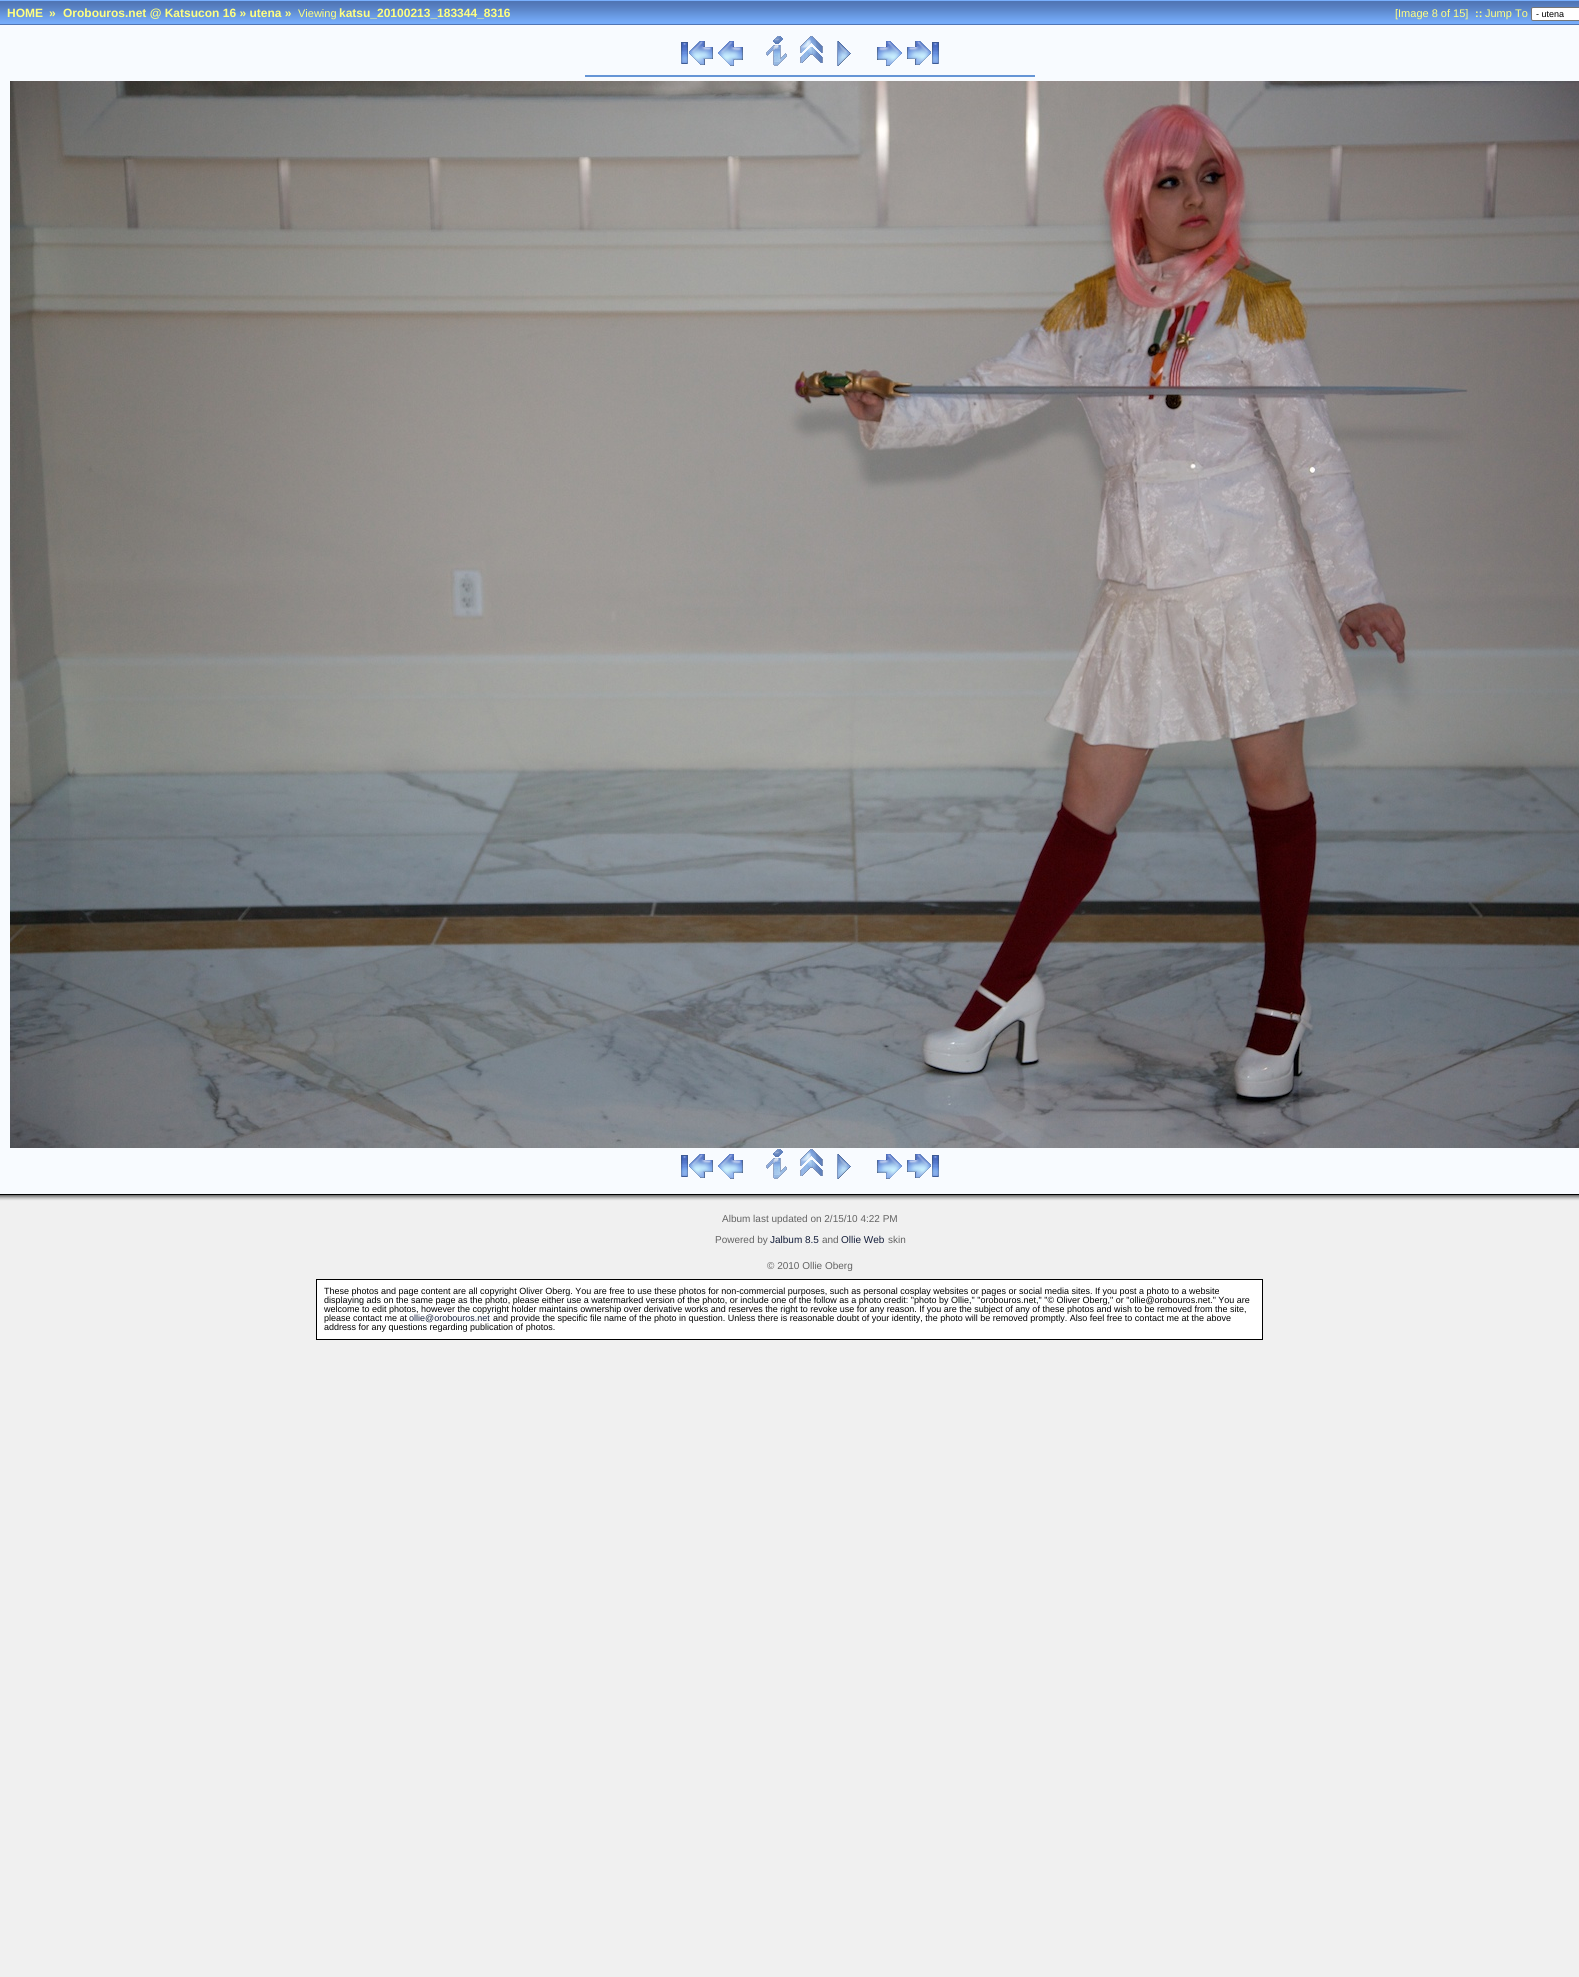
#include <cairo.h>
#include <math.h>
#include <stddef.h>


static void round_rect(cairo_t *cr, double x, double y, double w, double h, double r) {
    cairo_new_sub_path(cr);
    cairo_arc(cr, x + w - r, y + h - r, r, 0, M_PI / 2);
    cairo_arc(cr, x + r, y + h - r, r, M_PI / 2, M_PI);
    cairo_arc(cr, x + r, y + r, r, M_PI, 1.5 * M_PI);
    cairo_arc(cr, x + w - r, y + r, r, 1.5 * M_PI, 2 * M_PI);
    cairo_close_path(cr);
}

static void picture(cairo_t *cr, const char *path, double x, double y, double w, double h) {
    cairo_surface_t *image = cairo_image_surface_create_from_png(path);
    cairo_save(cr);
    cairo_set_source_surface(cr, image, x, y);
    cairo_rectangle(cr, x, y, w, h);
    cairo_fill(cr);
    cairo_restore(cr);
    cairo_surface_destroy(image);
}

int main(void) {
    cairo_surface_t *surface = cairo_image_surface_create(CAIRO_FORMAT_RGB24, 1579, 1977);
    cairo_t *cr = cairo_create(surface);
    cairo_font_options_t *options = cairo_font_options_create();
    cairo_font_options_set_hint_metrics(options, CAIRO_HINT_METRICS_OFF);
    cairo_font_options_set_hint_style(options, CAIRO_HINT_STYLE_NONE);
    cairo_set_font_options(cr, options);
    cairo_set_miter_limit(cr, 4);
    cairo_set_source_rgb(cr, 0.941, 0.941, 0.941);
    cairo_paint(cr);
    picture(cr, "img1.png", 0, 0, 1579, 25);
    cairo_select_font_face(cr, "Liberation Sans", CAIRO_FONT_SLANT_NORMAL, CAIRO_FONT_WEIGHT_BOLD);
    cairo_set_font_size(cr, 12);
    cairo_set_source_rgb(cr, 1, 1, 0.502);
    cairo_move_to(cr, 7, 17);
    cairo_show_text(cr, "HOME");
    cairo_move_to(cr, 49, 17);
    cairo_show_text(cr, "»");
    cairo_move_to(cr, 63, 17);
    cairo_show_text(cr, "Orobouros.net @ Katsucon 16 » utena »");
    cairo_select_font_face(cr, "Liberation Sans", CAIRO_FONT_SLANT_NORMAL, CAIRO_FONT_WEIGHT_NORMAL);
    cairo_set_font_size(cr, 11);
    cairo_move_to(cr, 298, 17);
    cairo_show_text(cr, "Viewing");
    cairo_select_font_face(cr, "Liberation Sans", CAIRO_FONT_SLANT_NORMAL, CAIRO_FONT_WEIGHT_BOLD);
    cairo_set_font_size(cr, 12);
    cairo_move_to(cr, 339, 17);
    cairo_show_text(cr, "katsu_20100213_183344_8316");
    cairo_select_font_face(cr, "Liberation Sans", CAIRO_FONT_SLANT_NORMAL, CAIRO_FONT_WEIGHT_NORMAL);
    cairo_set_font_size(cr, 11);
    cairo_move_to(cr, 1395, 17);
    cairo_show_text(cr, "[Image 8 of 15]");
    cairo_select_font_face(cr, "Liberation Sans", CAIRO_FONT_SLANT_NORMAL, CAIRO_FONT_WEIGHT_BOLD);
    cairo_move_to(cr, 1475, 17);
    cairo_show_text(cr, "::");
    cairo_select_font_face(cr, "Liberation Sans", CAIRO_FONT_SLANT_NORMAL, CAIRO_FONT_WEIGHT_NORMAL);
    cairo_move_to(cr, 1485, 17);
    cairo_show_text(cr, "Jump To");
    cairo_set_source_rgb(cr, 1, 1, 1);
    round_rect(cr, 1531.5, 7.5, 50, 13, 1.5);
    cairo_fill_preserve(cr);
    cairo_set_source_rgb(cr, 0.463, 0.463, 0.463);
    cairo_set_line_width(cr, 1);
    cairo_stroke(cr);
    cairo_set_font_size(cr, 9);
    cairo_set_source_rgb(cr, 0, 0, 0);
    cairo_move_to(cr, 1536, 17);
    cairo_show_text(cr, "- utena");
    cairo_set_source_rgb(cr, 0.969, 0.984, 1);
    cairo_rectangle(cr, 0, 25, 1579, 1169);
    cairo_fill(cr);
    picture(cr, "img2.png", 681, 41, 32, 24);
    picture(cr, "img3.png", 718, 41, 25, 25);
    picture(cr, "img4.png", 766, 36, 21, 30);
    picture(cr, "img5.png", 800, 36, 23, 27);
    picture(cr, "img6.png", 837, 41, 14, 25);
    picture(cr, "img7.png", 877, 41, 25, 25);
    picture(cr, "img8.png", 907, 41, 32, 24);
    cairo_set_source_rgb(cr, 0.396, 0.584, 0.839);
    cairo_rectangle(cr, 585, 75, 450, 2);
    cairo_fill(cr);
    picture(cr, "img9.png", 10, 81, 1569, 1067);
    picture(cr, "img2.png", 681, 1154, 32, 24);
    picture(cr, "img3.png", 718, 1154, 25, 25);
    picture(cr, "img4.png", 766, 1149, 21, 30);
    picture(cr, "img5.png", 800, 1149, 23, 27);
    picture(cr, "img6.png", 837, 1154, 14, 25);
    picture(cr, "img7.png", 877, 1154, 25, 25);
    picture(cr, "img8.png", 907, 1154, 32, 24);
    cairo_set_source_rgb(cr, 0, 0, 0);
    cairo_rectangle(cr, 0, 1194, 1579, 1);
    cairo_fill(cr);
    cairo_set_source_rgb(cr, 0.471, 0.471, 0.471);
    cairo_rectangle(cr, 0, 1195, 1579, 1);
    cairo_fill(cr);
    cairo_set_source_rgb(cr, 0.588, 0.588, 0.588);
    cairo_rectangle(cr, 0, 1196, 1579, 1);
    cairo_fill(cr);
    cairo_set_source_rgb(cr, 0.706, 0.706, 0.706);
    cairo_rectangle(cr, 0, 1197, 1579, 1);
    cairo_fill(cr);
    cairo_set_source_rgb(cr, 0.8, 0.8, 0.8);
    cairo_rectangle(cr, 0, 1198, 1579, 1);
    cairo_fill(cr);
    cairo_set_source_rgb(cr, 0.871, 0.871, 0.871);
    cairo_rectangle(cr, 0, 1199, 1579, 1);
    cairo_fill(cr);
    cairo_set_source_rgb(cr, 0.922, 0.922, 0.922);
    cairo_rectangle(cr, 0, 1200, 1579, 1);
    cairo_fill(cr);
    cairo_set_font_size(cr, 10);
    cairo_set_source_rgb(cr, 0.388, 0.388, 0.388);
    cairo_move_to(cr, 722, 1222);
    cairo_show_text(cr, "Album last updated on 2/15/10 4:22 PM");
    cairo_move_to(cr, 715, 1243);
    cairo_show_text(cr, "Powered by");
    cairo_set_source_rgb(cr, 0.078, 0.114, 0.227);
    cairo_move_to(cr, 770, 1243);
    cairo_show_text(cr, "Jalbum 8.5");
    cairo_set_source_rgb(cr, 0.388, 0.388, 0.388);
    cairo_move_to(cr, 822, 1243);
    cairo_show_text(cr, "and");
    cairo_set_source_rgb(cr, 0.078, 0.114, 0.227);
    cairo_move_to(cr, 841, 1243);
    cairo_show_text(cr, "Ollie Web");
    cairo_set_source_rgb(cr, 0.388, 0.388, 0.388);
    cairo_move_to(cr, 888, 1243);
    cairo_show_text(cr, "skin");
    cairo_move_to(cr, 767, 1269);
    cairo_show_text(cr, "© 2010 Ollie Oberg");
    cairo_set_source_rgb(cr, 1, 1, 1);
    cairo_rectangle(cr, 316.5, 1279.5, 946, 60);
    cairo_fill_preserve(cr);
    cairo_set_source_rgb(cr, 0, 0, 0);
    cairo_stroke(cr);
    cairo_set_font_size(cr, 9);
    cairo_move_to(cr, 324, 1294);
    cairo_show_text(cr, "These photos and page content are all copyright Oliver Oberg. You are free to use these photos for non-commercial purposes, such as personal cosplay websites or pages or social media sites. If you post a photo to a website");
    cairo_move_to(cr, 324, 1303);
    cairo_show_text(cr, "displaying ads on the same page as the photo, please either use a watermarked version of the photo, or include one of the follow as a photo credit: \"photo by Ollie,\" \"orobouros.net,\" \"© Oliver Oberg,\" or \"ollie@orobouros.net.\" You are");
    cairo_move_to(cr, 324, 1312);
    cairo_show_text(cr, "welcome to edit photos, however the copyright holder maintains ownership over derivative works and reserves the right to revoke use for any reason. If you are the subject of any of these photos and wish to be removed from the site,");
    cairo_move_to(cr, 324, 1321);
    cairo_show_text(cr, "please contact me at");
    cairo_set_source_rgb(cr, 0.078, 0.114, 0.227);
    cairo_move_to(cr, 409, 1321);
    cairo_show_text(cr, "ollie@orobouros.net");
    cairo_set_source_rgb(cr, 0, 0, 0);
    cairo_move_to(cr, 493, 1321);
    cairo_show_text(cr, "and provide the specific file name of the photo in question. Unless there is reasonable doubt of your identity, the photo will be removed promptly. Also feel free to contact me at the above");
    cairo_move_to(cr, 324, 1330);
    cairo_show_text(cr, "address for any questions regarding publication of photos.");
    cairo_surface_write_to_png(surface, "page.png");
    cairo_font_options_destroy(options);
    cairo_destroy(cr);
    cairo_surface_destroy(surface);
    return 0;
}
